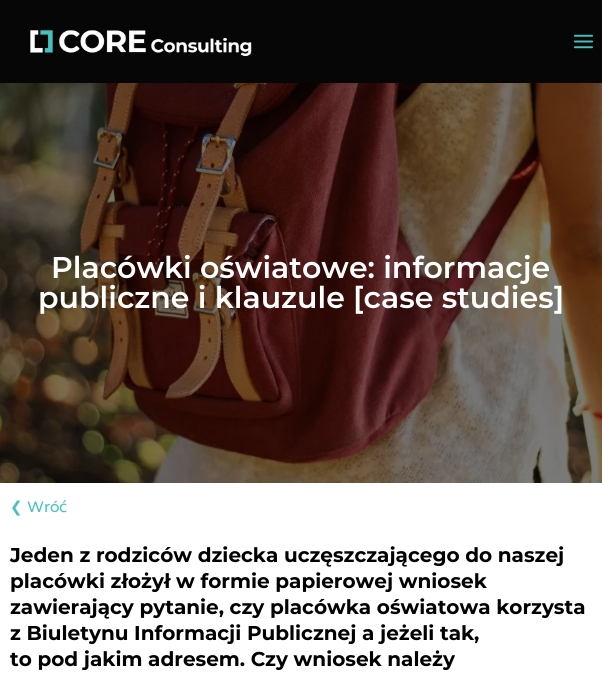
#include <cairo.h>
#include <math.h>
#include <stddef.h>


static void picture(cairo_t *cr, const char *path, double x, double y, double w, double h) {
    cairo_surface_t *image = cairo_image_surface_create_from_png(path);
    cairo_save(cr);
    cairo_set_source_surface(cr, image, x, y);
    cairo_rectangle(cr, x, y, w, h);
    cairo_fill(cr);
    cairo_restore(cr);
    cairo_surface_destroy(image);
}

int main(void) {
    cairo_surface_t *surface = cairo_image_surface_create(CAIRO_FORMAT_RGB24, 602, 686);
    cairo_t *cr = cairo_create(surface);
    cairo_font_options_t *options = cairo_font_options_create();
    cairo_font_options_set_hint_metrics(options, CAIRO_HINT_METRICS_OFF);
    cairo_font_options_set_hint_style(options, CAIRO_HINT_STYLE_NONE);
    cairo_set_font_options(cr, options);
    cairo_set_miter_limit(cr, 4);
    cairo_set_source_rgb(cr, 1, 1, 1);
    cairo_paint(cr);
    cairo_set_source_rgb(cr, 0.024, 0.024, 0.024);
    cairo_rectangle(cr, 0, 0, 602, 83);
    cairo_fill(cr);
    picture(cr, "img1.png", 30, 30, 222, 26);
    picture(cr, "img2.png", 573, 34, 21, 15);
    picture(cr, "img3.png", 0, 83, 602, 400);
    cairo_select_font_face(cr, "Montserrat SemiBold", CAIRO_FONT_SLANT_NORMAL, CAIRO_FONT_WEIGHT_NORMAL);
    cairo_set_font_size(cr, 30);
    cairo_set_source_rgb(cr, 1, 1, 1);
    cairo_move_to(cr, 51, 278);
    cairo_show_text(cr, "Placówki oświatowe: informacje");
    cairo_move_to(cr, 38, 308);
    cairo_show_text(cr, "publiczne i klauzule [case studies]");
    cairo_select_font_face(cr, "DejaVu Sans", CAIRO_FONT_SLANT_NORMAL, CAIRO_FONT_WEIGHT_NORMAL);
    cairo_set_font_size(cr, 15);
    cairo_set_source_rgb(cr, 0.275, 0.757, 0.745);
    cairo_move_to(cr, 10, 512);
    cairo_show_text(cr, "❮");
    cairo_select_font_face(cr, "Montserrat Medium", CAIRO_FONT_SLANT_NORMAL, CAIRO_FONT_WEIGHT_NORMAL);
    cairo_move_to(cr, 27, 512);
    cairo_show_text(cr, "Wró");
    cairo_select_font_face(cr, "DejaVu Sans", CAIRO_FONT_SLANT_NORMAL, CAIRO_FONT_WEIGHT_NORMAL);
    cairo_move_to(cr, 59, 512);
    cairo_show_text(cr, "ć");
    cairo_select_font_face(cr, "Montserrat", CAIRO_FONT_SLANT_NORMAL, CAIRO_FONT_WEIGHT_BOLD);
    cairo_set_font_size(cr, 20);
    cairo_set_source_rgb(cr, 0, 0, 0);
    cairo_move_to(cr, 10, 562);
    cairo_show_text(cr, "Jeden z rodziców dziecka uczęszczającego do naszej");
    cairo_move_to(cr, 10, 588);
    cairo_show_text(cr, "placówki złożył w formie papierowej wniosek");
    cairo_move_to(cr, 10, 614);
    cairo_show_text(cr, "zawierający pytanie, czy placówka oświatowa korzysta");
    cairo_move_to(cr, 10, 640);
    cairo_show_text(cr, "z Biuletynu Informacji Publicznej a jeżeli tak,");
    cairo_move_to(cr, 10, 666);
    cairo_show_text(cr, "to pod jakim adresem. Czy wniosek należy");
    cairo_surface_write_to_png(surface, "page.png");
    cairo_font_options_destroy(options);
    cairo_destroy(cr);
    cairo_surface_destroy(surface);
    return 0;
}
